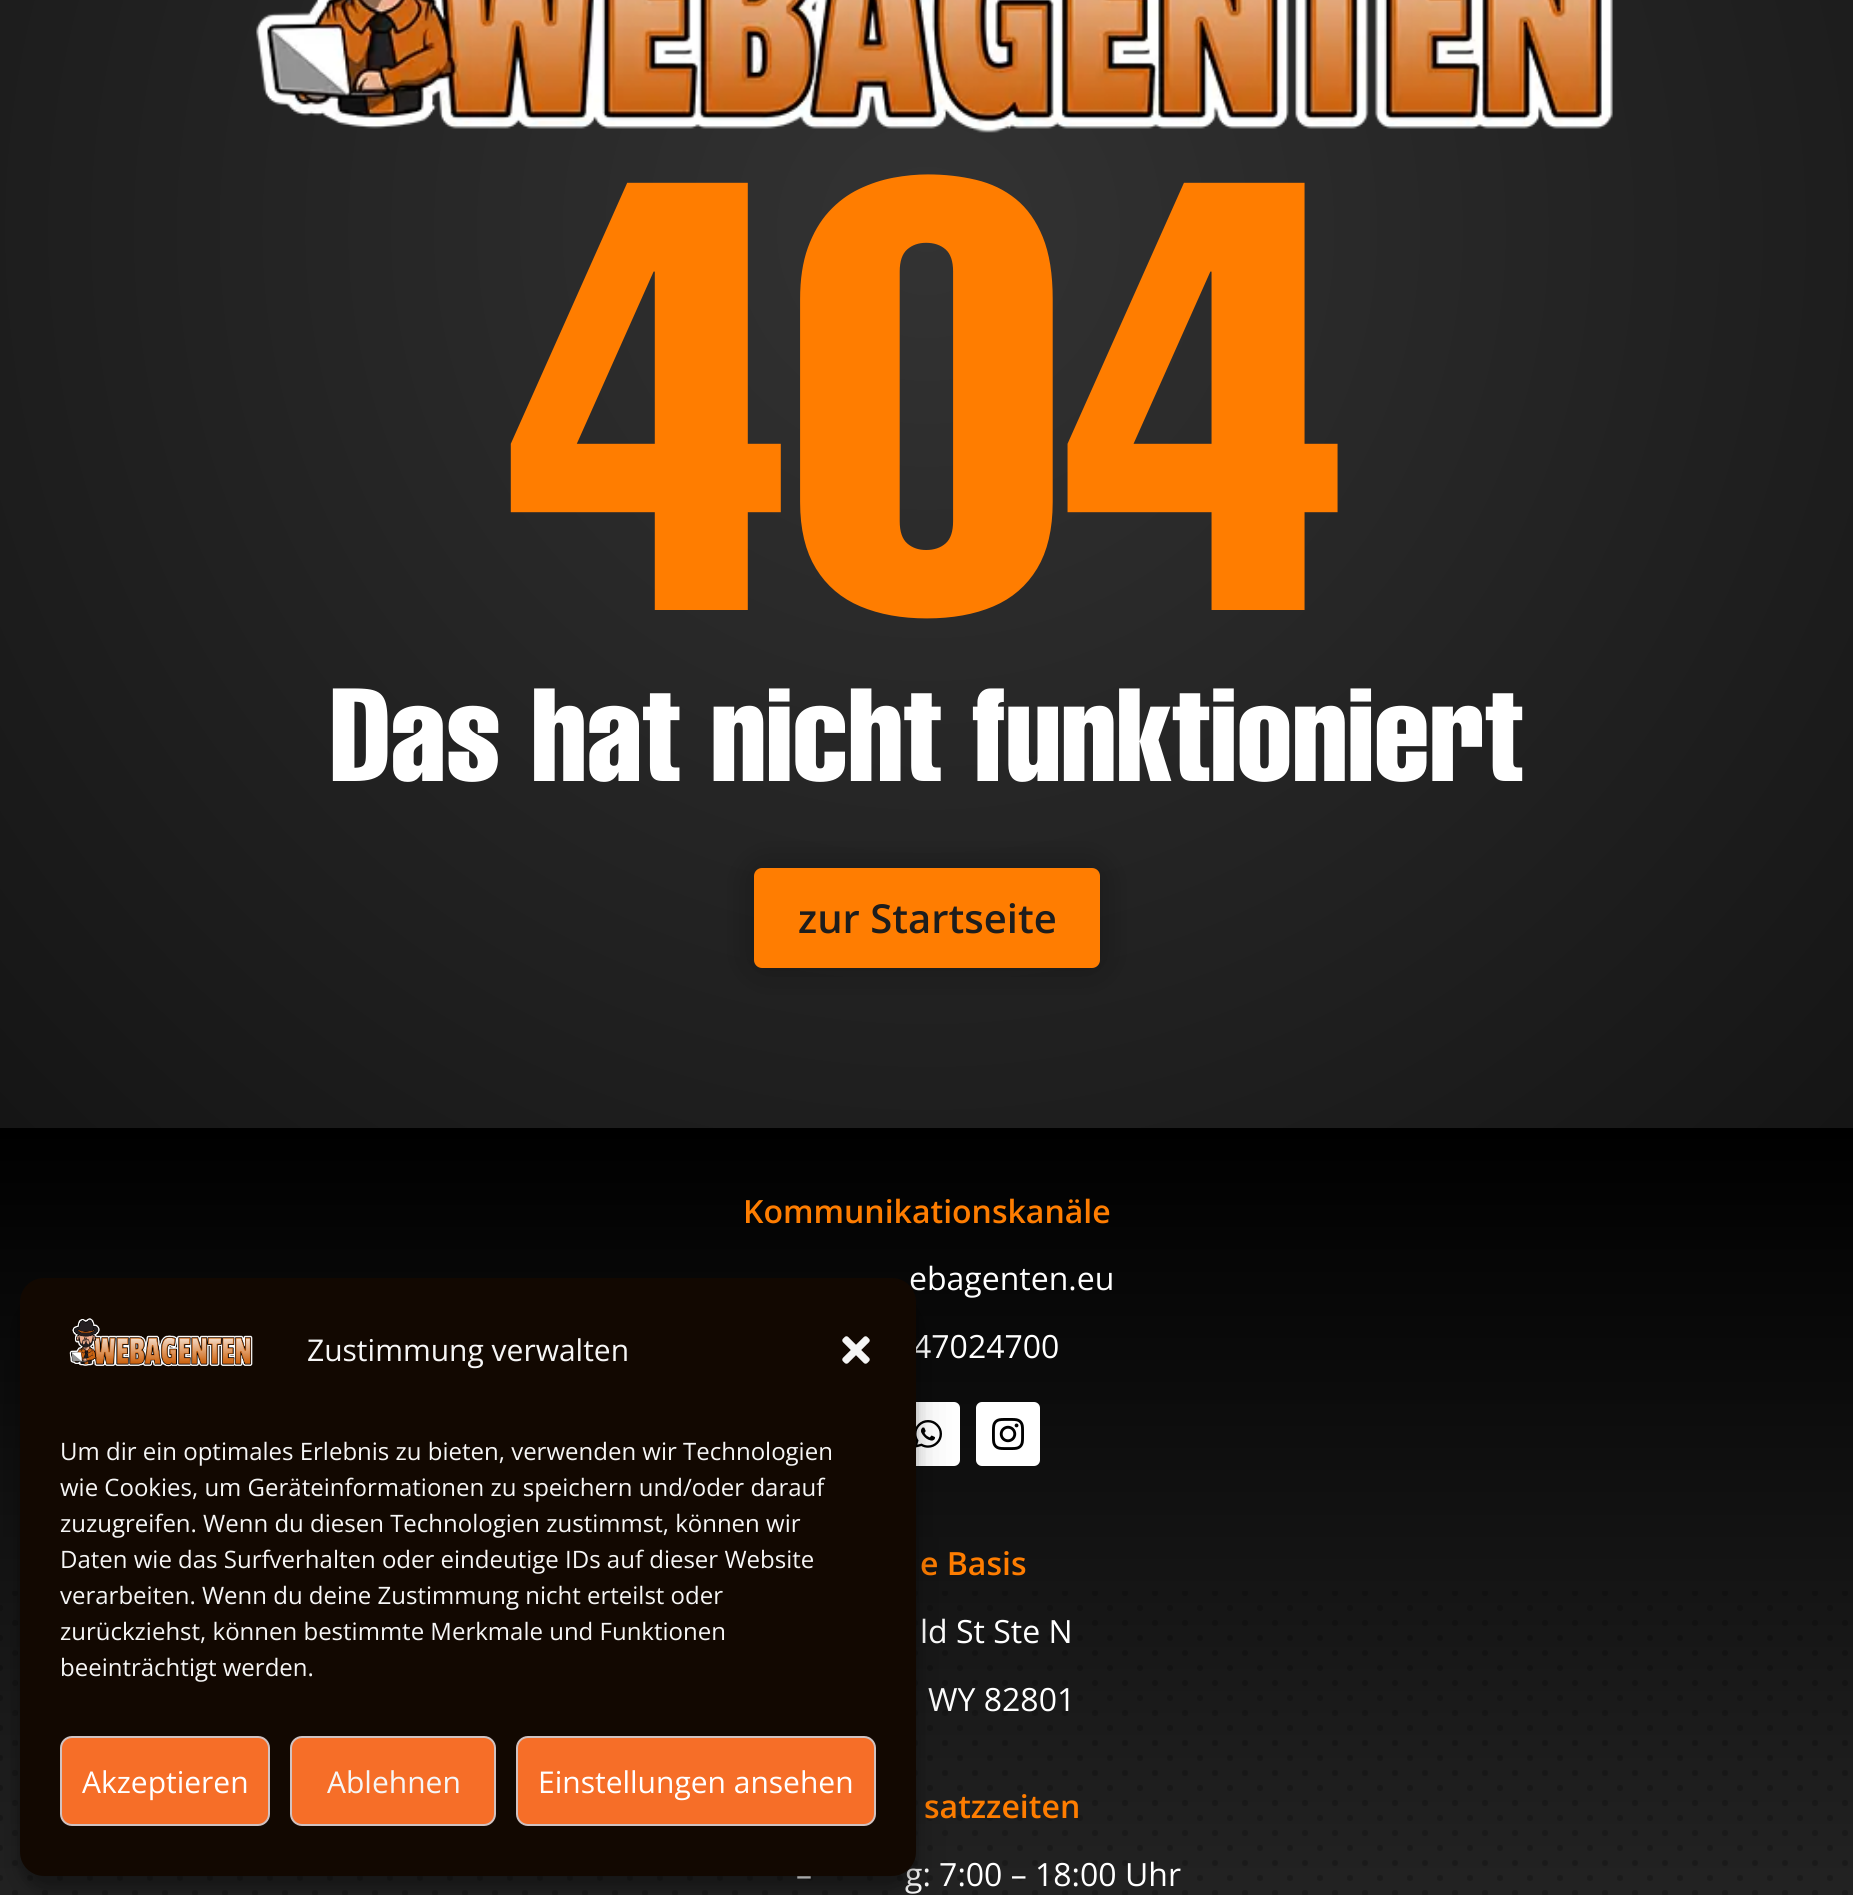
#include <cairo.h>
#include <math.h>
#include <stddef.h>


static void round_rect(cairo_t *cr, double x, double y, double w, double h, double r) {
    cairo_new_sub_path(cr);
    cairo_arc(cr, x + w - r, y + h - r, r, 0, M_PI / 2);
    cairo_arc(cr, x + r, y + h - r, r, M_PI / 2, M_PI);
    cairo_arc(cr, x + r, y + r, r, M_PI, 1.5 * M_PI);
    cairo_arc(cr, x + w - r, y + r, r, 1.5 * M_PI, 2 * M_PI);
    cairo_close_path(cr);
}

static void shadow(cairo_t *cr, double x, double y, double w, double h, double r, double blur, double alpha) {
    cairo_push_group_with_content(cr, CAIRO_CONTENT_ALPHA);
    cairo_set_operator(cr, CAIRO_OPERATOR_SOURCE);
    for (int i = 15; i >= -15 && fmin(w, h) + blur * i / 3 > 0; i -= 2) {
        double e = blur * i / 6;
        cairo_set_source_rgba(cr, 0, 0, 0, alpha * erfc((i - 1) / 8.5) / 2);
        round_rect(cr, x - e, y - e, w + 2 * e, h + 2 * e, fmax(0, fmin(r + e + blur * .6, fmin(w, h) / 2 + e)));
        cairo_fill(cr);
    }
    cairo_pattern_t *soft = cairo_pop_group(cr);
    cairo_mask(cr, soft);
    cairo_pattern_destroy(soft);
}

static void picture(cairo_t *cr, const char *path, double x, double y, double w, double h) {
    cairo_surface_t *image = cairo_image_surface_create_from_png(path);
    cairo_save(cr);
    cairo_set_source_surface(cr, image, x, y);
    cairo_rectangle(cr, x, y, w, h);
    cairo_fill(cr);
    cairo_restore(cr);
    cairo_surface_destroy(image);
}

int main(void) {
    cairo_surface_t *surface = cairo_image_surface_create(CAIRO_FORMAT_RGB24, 1853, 1895);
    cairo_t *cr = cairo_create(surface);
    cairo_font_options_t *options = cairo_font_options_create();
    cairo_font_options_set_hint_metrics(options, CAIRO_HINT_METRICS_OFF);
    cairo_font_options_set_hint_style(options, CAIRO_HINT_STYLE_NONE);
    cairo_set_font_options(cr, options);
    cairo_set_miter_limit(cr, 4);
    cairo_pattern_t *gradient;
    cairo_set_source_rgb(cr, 1, 1, 1);
    cairo_paint(cr);
    gradient = cairo_pattern_create_radial(927, 231, 0, 927, 231, 1290);
    cairo_pattern_add_color_stop_rgba(gradient, 0, 0.2, 0.2, 0.2, 1);
    cairo_pattern_add_color_stop_rgba(gradient, 1, 0.082, 0.082, 0.082, 1);
    cairo_set_source(cr, gradient);
    cairo_pattern_destroy(gradient);
    cairo_rectangle(cr, 0, 0, 1853, 1128);
    cairo_fill(cr);
    picture(cr, "img1.png", 256, 0, 1357, 133);
    cairo_select_font_face(cr, "Helvetica Medium", CAIRO_FONT_SLANT_NORMAL, CAIRO_FONT_WEIGHT_NORMAL);
    cairo_set_font_size(cr, 600);
    cairo_set_source_rgb(cr, 1, 0.49, 0);
    cairo_move_to(cr, 509, 610);
    cairo_show_text(cr, "404");
    cairo_set_font_size(cr, 130);
    cairo_set_source_rgb(cr, 1, 1, 1);
    cairo_move_to(cr, 330, 781);
    cairo_show_text(cr, "Das hat nicht funktioniert");
    cairo_set_source_rgb(cr, 0, 0, 0);
    shadow(cr, 754, 868, 346, 100, 8, 18, 0.3);
    cairo_set_source_rgb(cr, 1, 0.49, 0.004);
    round_rect(cr, 756, 870, 342, 96, 6);
    cairo_fill_preserve(cr);
    cairo_set_line_width(cr, 4);
    cairo_stroke(cr);
    cairo_select_font_face(cr, "Open Sans SemiBold", CAIRO_FONT_SLANT_NORMAL, CAIRO_FONT_WEIGHT_NORMAL);
    cairo_set_font_size(cr, 40);
    cairo_set_source_rgb(cr, 0.114, 0.114, 0.114);
    cairo_move_to(cr, 798, 933);
    cairo_show_text(cr, "zur Startseite");
    gradient = cairo_pattern_create_linear(927, 1128, 927, 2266);
    cairo_pattern_add_color_stop_rgba(gradient, 0, 0, 0, 0, 1);
    cairo_pattern_add_color_stop_rgba(gradient, 0.99, 0.2, 0.2, 0.2, 1);
    cairo_set_source(cr, gradient);
    cairo_pattern_destroy(gradient);
    cairo_rectangle(cr, 0, 1128, 1853, 767);
    cairo_fill(cr);
    cairo_set_font_size(cr, 32);
    cairo_set_source_rgb(cr, 1, 0.49, 0);
    cairo_move_to(cr, 743, 1223);
    cairo_show_text(cr, "Kommunikationskanäle");
    cairo_select_font_face(cr, "Open Sans", CAIRO_FONT_SLANT_NORMAL, CAIRO_FONT_WEIGHT_NORMAL);
    cairo_set_source_rgb(cr, 1, 1, 1);
    cairo_move_to(cr, 909, 1290);
    cairo_show_text(cr, "ebagenten.eu");
    cairo_move_to(cr, 913, 1358);
    cairo_show_text(cr, "47024700");
    round_rect(cr, 896, 1402, 64, 64, 6);
    cairo_fill(cr);
    picture(cr, "img2.png", 916, 1420, 26, 28);
    round_rect(cr, 976, 1402, 64, 64, 6);
    cairo_fill(cr);
    picture(cr, "img3.png", 992, 1418, 32, 32);
    cairo_select_font_face(cr, "Open Sans SemiBold", CAIRO_FONT_SLANT_NORMAL, CAIRO_FONT_WEIGHT_NORMAL);
    cairo_set_source_rgb(cr, 1, 0.49, 0);
    cairo_move_to(cr, 920, 1575);
    cairo_show_text(cr, "e Basis");
    picture(cr, "img4.png", 0, 1591, 1848, 304);
    cairo_select_font_face(cr, "Open Sans", CAIRO_FONT_SLANT_NORMAL, CAIRO_FONT_WEIGHT_NORMAL);
    cairo_set_source_rgb(cr, 1, 1, 1);
    cairo_move_to(cr, 920, 1643);
    cairo_show_text(cr, "ld St Ste N");
    cairo_move_to(cr, 928, 1711);
    cairo_show_text(cr, "WY 82801");
    cairo_select_font_face(cr, "Open Sans SemiBold", CAIRO_FONT_SLANT_NORMAL, CAIRO_FONT_WEIGHT_NORMAL);
    cairo_set_source_rgb(cr, 1, 0.49, 0);
    cairo_move_to(cr, 924, 1818);
    cairo_show_text(cr, "satzzeiten");
    cairo_select_font_face(cr, "Open Sans", CAIRO_FONT_SLANT_NORMAL, CAIRO_FONT_WEIGHT_NORMAL);
    cairo_set_source_rgb(cr, 1, 1, 1);
    cairo_move_to(cr, 796, 1886);
    cairo_show_text(cr, "–");
    cairo_move_to(cr, 905, 1886);
    cairo_show_text(cr, "g: 7:00 – 18:00 Uhr");
    cairo_set_source_rgb(cr, 0, 0, 0);
    shadow(cr, 20, 1290, 896, 598, 24, 6, 0.23);
    shadow(cr, 20, 1298, 896, 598, 24, 20, 0.19);
    cairo_set_source_rgb(cr, 0.071, 0.035, 0.004);
    round_rect(cr, 20, 1278, 896, 598, 24);
    cairo_fill(cr);
    picture(cr, "img5.png", 69, 1318, 184, 49);
    cairo_set_font_size(cr, 30);
    cairo_set_source_rgb(cr, 0.961, 0.961, 0.961);
    cairo_move_to(cr, 307, 1361);
    cairo_show_text(cr, "Zustimmung verwalten");
    picture(cr, "img6.png", 842, 1336, 28, 28);
    cairo_set_font_size(cr, 24);
    cairo_move_to(cr, 60, 1460);
    cairo_show_text(cr, "Um dir ein optimales Erlebnis zu bieten, verwenden wir Technologien");
    cairo_move_to(cr, 60, 1496);
    cairo_show_text(cr, "wie Cookies, um Geräteinformationen zu speichern und/oder darauf");
    cairo_move_to(cr, 60, 1532);
    cairo_show_text(cr, "zuzugreifen. Wenn du diesen Technologien zustimmst, können wir");
    cairo_move_to(cr, 60, 1568);
    cairo_show_text(cr, "Daten wie das Surfverhalten oder eindeutige IDs auf dieser Website");
    cairo_move_to(cr, 60, 1604);
    cairo_show_text(cr, "verarbeiten. Wenn du deine Zustimmung nicht erteilst oder");
    cairo_move_to(cr, 60, 1640);
    cairo_show_text(cr, "zurückziehst, können bestimmte Merkmale und Funktionen");
    cairo_move_to(cr, 60, 1676);
    cairo_show_text(cr, "beeinträchtigt werden.");
    cairo_set_source_rgb(cr, 0.961, 0.431, 0.157);
    round_rect(cr, 61, 1737, 208, 88, 11);
    cairo_fill_preserve(cr);
    cairo_set_source_rgb(cr, 0.816, 0.761, 0.761);
    cairo_set_line_width(cr, 2);
    cairo_stroke(cr);
    cairo_set_font_size(cr, 30);
    cairo_set_source_rgb(cr, 1, 1, 1);
    cairo_move_to(cr, 82, 1793);
    cairo_show_text(cr, "Akzeptieren");
    cairo_set_source_rgb(cr, 0.961, 0.431, 0.157);
    round_rect(cr, 291, 1737, 204, 88, 11);
    cairo_fill_preserve(cr);
    cairo_set_source_rgb(cr, 0.816, 0.761, 0.761);
    cairo_stroke(cr);
    cairo_set_source_rgb(cr, 0.961, 0.961, 0.961);
    cairo_move_to(cr, 327, 1793);
    cairo_show_text(cr, "Ablehnen");
    cairo_set_source_rgb(cr, 0.961, 0.431, 0.157);
    round_rect(cr, 517, 1737, 358, 88, 11);
    cairo_fill_preserve(cr);
    cairo_set_source_rgb(cr, 0.816, 0.761, 0.761);
    cairo_stroke(cr);
    cairo_set_source_rgb(cr, 1, 1, 1);
    cairo_move_to(cr, 538, 1793);
    cairo_show_text(cr, "Einstellungen ansehen");
    cairo_surface_write_to_png(surface, "page.png");
    cairo_font_options_destroy(options);
    cairo_destroy(cr);
    cairo_surface_destroy(surface);
    return 0;
}
